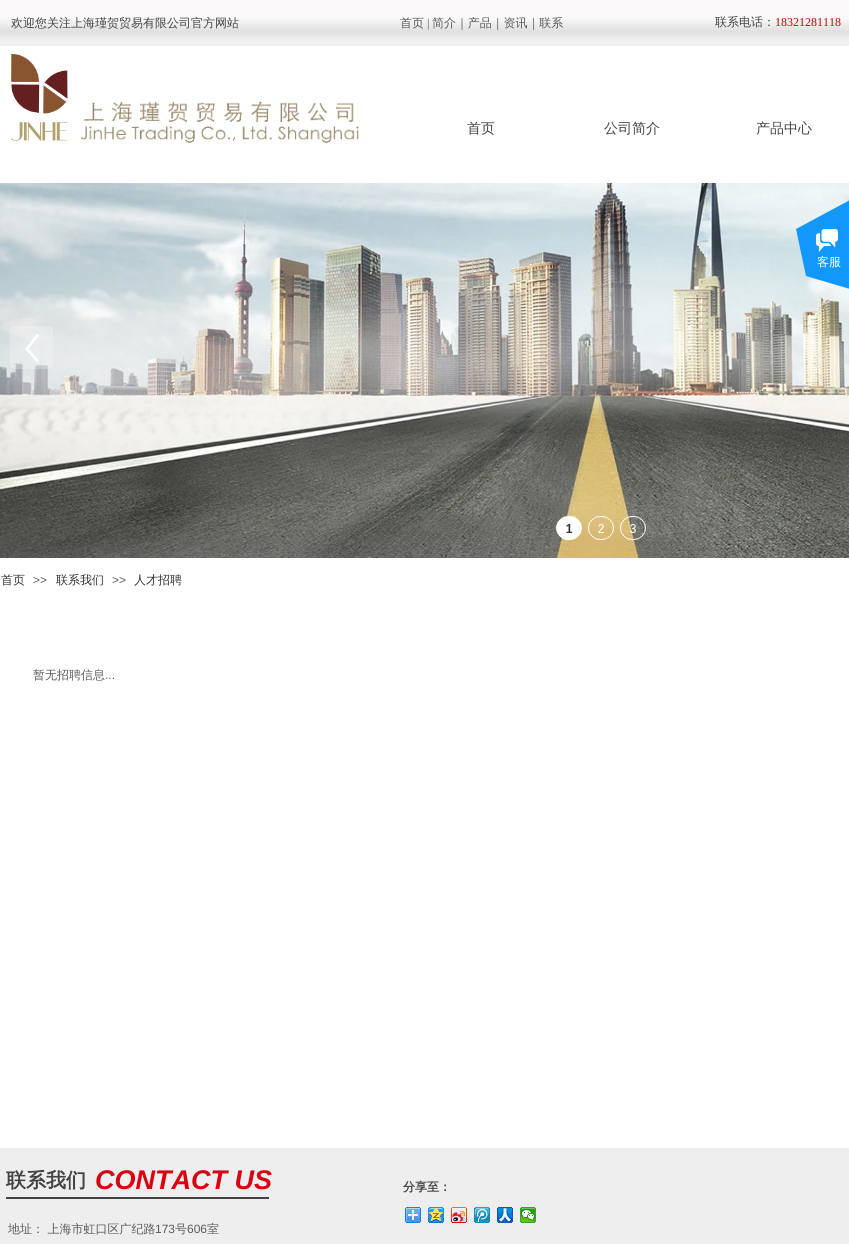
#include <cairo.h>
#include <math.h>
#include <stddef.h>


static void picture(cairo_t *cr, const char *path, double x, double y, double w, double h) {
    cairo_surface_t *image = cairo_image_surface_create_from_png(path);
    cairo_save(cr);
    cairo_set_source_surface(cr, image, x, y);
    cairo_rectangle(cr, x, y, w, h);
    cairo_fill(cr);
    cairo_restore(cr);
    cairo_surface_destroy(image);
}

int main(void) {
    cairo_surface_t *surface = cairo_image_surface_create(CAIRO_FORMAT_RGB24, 849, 1244);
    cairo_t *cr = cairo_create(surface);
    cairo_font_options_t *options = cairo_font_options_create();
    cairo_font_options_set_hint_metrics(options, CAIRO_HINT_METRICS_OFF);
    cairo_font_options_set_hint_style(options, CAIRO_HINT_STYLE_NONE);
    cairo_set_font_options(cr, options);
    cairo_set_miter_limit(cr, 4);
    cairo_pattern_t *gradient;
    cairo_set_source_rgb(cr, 1, 1, 1);
    cairo_paint(cr);
    gradient = cairo_pattern_create_linear(590, -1, 590, 46);
    cairo_pattern_add_color_stop_rgba(gradient, 0.4, 0.98, 0.973, 0.973, 1);
    cairo_pattern_add_color_stop_rgba(gradient, 0.7, 0.875, 0.882, 0.871, 1);
    cairo_pattern_add_color_stop_rgba(gradient, 0.9, 0.945, 0.945, 0.945, 1);
    cairo_set_source(cr, gradient);
    cairo_pattern_destroy(gradient);
    cairo_rectangle(cr, 0, 0, 849, 46);
    cairo_fill(cr);
    cairo_select_font_face(cr, "WenQuanYi Zen Hei Medium", CAIRO_FONT_SLANT_NORMAL, CAIRO_FONT_WEIGHT_NORMAL);
    cairo_set_font_size(cr, 12);
    cairo_set_source_rgb(cr, 0.263, 0.263, 0.263);
    cairo_move_to(cr, 11, 27);
    cairo_show_text(cr, "欢迎您关注上海瑾贺贸易有限公司官方网站");
    cairo_set_source_rgb(cr, 0.353, 0.353, 0.353);
    cairo_move_to(cr, 400, 27);
    cairo_show_text(cr, "首页");
    cairo_select_font_face(cr, "Liberation Serif", CAIRO_FONT_SLANT_NORMAL, CAIRO_FONT_WEIGHT_NORMAL);
    cairo_move_to(cr, 427, 27);
    cairo_show_text(cr, "|");
    cairo_select_font_face(cr, "WenQuanYi Zen Hei Medium", CAIRO_FONT_SLANT_NORMAL, CAIRO_FONT_WEIGHT_NORMAL);
    cairo_move_to(cr, 432, 27);
    cairo_show_text(cr, "简介｜产品｜资讯｜联系");
    cairo_set_source_rgb(cr, 0.263, 0.263, 0.263);
    cairo_move_to(cr, 715, 26);
    cairo_show_text(cr, "联系电话：");
    cairo_select_font_face(cr, "Liberation Serif", CAIRO_FONT_SLANT_NORMAL, CAIRO_FONT_WEIGHT_NORMAL);
    cairo_set_source_rgb(cr, 0.8, 0, 0);
    cairo_move_to(cr, 775, 26);
    cairo_show_text(cr, "18321281118");
    picture(cr, "img1.png", 11, 54, 57, 87);
    picture(cr, "img2.png", 80, 101, 279, 42);
    cairo_select_font_face(cr, "WenQuanYi Zen Hei Medium", CAIRO_FONT_SLANT_NORMAL, CAIRO_FONT_WEIGHT_NORMAL);
    cairo_set_font_size(cr, 14);
    cairo_set_source_rgb(cr, 0.263, 0.263, 0.263);
    cairo_move_to(cr, 467, 133);
    cairo_show_text(cr, "首页");
    cairo_move_to(cr, 604, 133);
    cairo_show_text(cr, "公司简介");
    cairo_move_to(cr, 756, 133);
    cairo_show_text(cr, "产品中心");
    picture(cr, "img3.png", 0, 183, 849, 375);
    cairo_set_font_size(cr, 12);
    cairo_set_source_rgb(cr, 0.2, 0.2, 0.2);
    cairo_move_to(cr, 1, 584);
    cairo_show_text(cr, "首页");
    cairo_select_font_face(cr, "Liberation Sans", CAIRO_FONT_SLANT_NORMAL, CAIRO_FONT_WEIGHT_NORMAL);
    cairo_set_source_rgb(cr, 0.353, 0.353, 0.353);
    cairo_move_to(cr, 33, 584);
    cairo_show_text(cr, ">>");
    cairo_select_font_face(cr, "WenQuanYi Zen Hei Medium", CAIRO_FONT_SLANT_NORMAL, CAIRO_FONT_WEIGHT_NORMAL);
    cairo_set_source_rgb(cr, 0.2, 0.2, 0.2);
    cairo_move_to(cr, 56, 584);
    cairo_show_text(cr, "联系我们");
    cairo_select_font_face(cr, "Liberation Sans", CAIRO_FONT_SLANT_NORMAL, CAIRO_FONT_WEIGHT_NORMAL);
    cairo_set_source_rgb(cr, 0.353, 0.353, 0.353);
    cairo_move_to(cr, 112, 584);
    cairo_show_text(cr, ">>");
    cairo_select_font_face(cr, "WenQuanYi Zen Hei Medium", CAIRO_FONT_SLANT_NORMAL, CAIRO_FONT_WEIGHT_NORMAL);
    cairo_set_source_rgb(cr, 0.2, 0.2, 0.2);
    cairo_move_to(cr, 134, 584);
    cairo_show_text(cr, "人才招聘");
    cairo_set_source_rgb(cr, 0.353, 0.353, 0.353);
    cairo_move_to(cr, 33, 679);
    cairo_show_text(cr, "暂无招聘信息");
    cairo_select_font_face(cr, "Liberation Sans", CAIRO_FONT_SLANT_NORMAL, CAIRO_FONT_WEIGHT_NORMAL);
    cairo_move_to(cr, 105, 679);
    cairo_show_text(cr, "...");
    cairo_set_source_rgb(cr, 0.933, 0.933, 0.933);
    cairo_rectangle(cr, 0, 1148, 849, 96);
    cairo_fill(cr);
    cairo_select_font_face(cr, "WenQuanYi Zen Hei", CAIRO_FONT_SLANT_NORMAL, CAIRO_FONT_WEIGHT_BOLD);
    cairo_set_font_size(cr, 20);
    cairo_set_source_rgb(cr, 0.263, 0.263, 0.263);
    cairo_move_to(cr, 6, 1187);
    cairo_show_text(cr, "联系我们");
    cairo_select_font_face(cr, "Liberation Sans", CAIRO_FONT_SLANT_ITALIC, CAIRO_FONT_WEIGHT_BOLD);
    cairo_set_font_size(cr, 27);
    cairo_set_source_rgb(cr, 0.851, 0, 0.067);
    cairo_move_to(cr, 95, 1189);
    cairo_show_text(cr, "CONTACT US");
    cairo_select_font_face(cr, "WenQuanYi Zen Hei", CAIRO_FONT_SLANT_NORMAL, CAIRO_FONT_WEIGHT_BOLD);
    cairo_set_font_size(cr, 12);
    cairo_set_source_rgb(cr, 0.263, 0.263, 0.263);
    cairo_move_to(cr, 403, 1191);
    cairo_show_text(cr, "分享至：");
    cairo_rectangle(cr, 6, 1197, 263, 2);
    cairo_fill(cr);
    picture(cr, "img4.png", 405, 1207, 16, 16);
    picture(cr, "img5.png", 428, 1207, 16, 16);
    picture(cr, "img6.png", 451, 1207, 16, 16);
    picture(cr, "img7.png", 474, 1207, 16, 16);
    picture(cr, "img8.png", 497, 1207, 16, 16);
    picture(cr, "img9.png", 520, 1207, 16, 16);
    cairo_select_font_face(cr, "WenQuanYi Zen Hei Medium", CAIRO_FONT_SLANT_NORMAL, CAIRO_FONT_WEIGHT_NORMAL);
    cairo_set_source_rgb(cr, 0.353, 0.353, 0.353);
    cairo_move_to(cr, 8, 1233);
    cairo_show_text(cr, "地址： 上海市虹口区广纪路");
    cairo_select_font_face(cr, "Liberation Sans", CAIRO_FONT_SLANT_NORMAL, CAIRO_FONT_WEIGHT_NORMAL);
    cairo_move_to(cr, 155, 1233);
    cairo_show_text(cr, "173");
    cairo_select_font_face(cr, "WenQuanYi Zen Hei Medium", CAIRO_FONT_SLANT_NORMAL, CAIRO_FONT_WEIGHT_NORMAL);
    cairo_move_to(cr, 175, 1233);
    cairo_show_text(cr, "号");
    cairo_select_font_face(cr, "Liberation Sans", CAIRO_FONT_SLANT_NORMAL, CAIRO_FONT_WEIGHT_NORMAL);
    cairo_move_to(cr, 187, 1233);
    cairo_show_text(cr, "606");
    cairo_select_font_face(cr, "WenQuanYi Zen Hei Medium", CAIRO_FONT_SLANT_NORMAL, CAIRO_FONT_WEIGHT_NORMAL);
    cairo_move_to(cr, 207, 1233);
    cairo_show_text(cr, "室");
    picture(cr, "img10.png", 796, 200, 53, 89);
    cairo_set_source_rgb(cr, 1, 1, 1);
    cairo_move_to(cr, 817, 266);
    cairo_show_text(cr, "客服");
    cairo_surface_write_to_png(surface, "page.png");
    cairo_font_options_destroy(options);
    cairo_destroy(cr);
    cairo_surface_destroy(surface);
    return 0;
}
